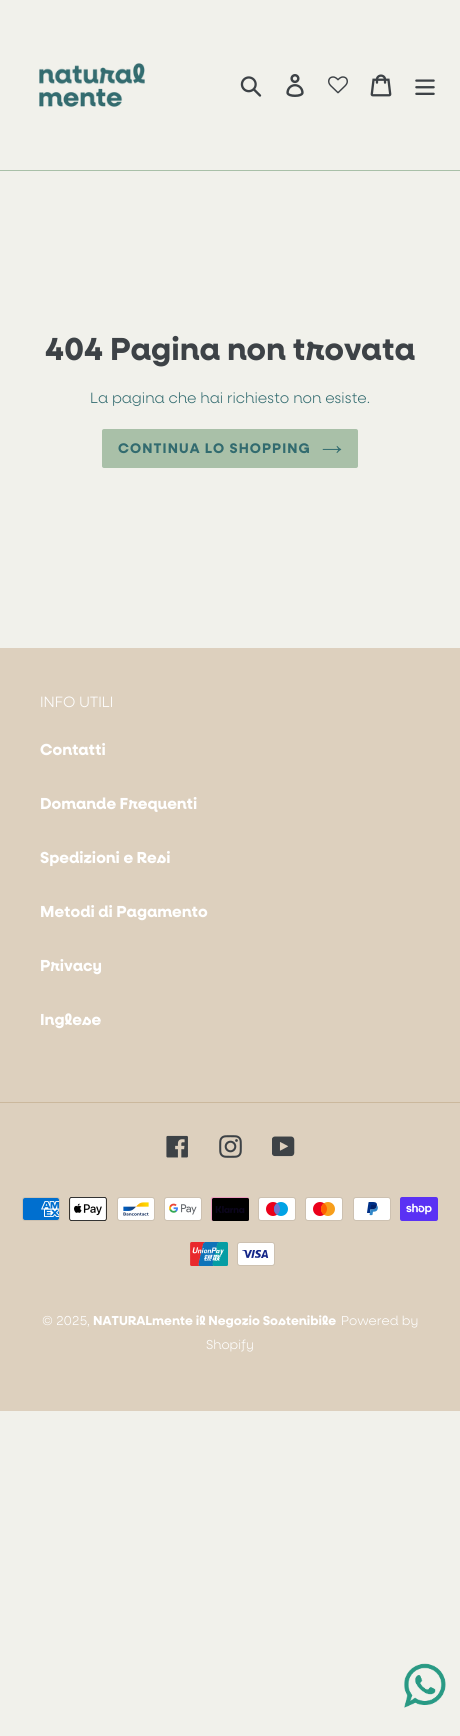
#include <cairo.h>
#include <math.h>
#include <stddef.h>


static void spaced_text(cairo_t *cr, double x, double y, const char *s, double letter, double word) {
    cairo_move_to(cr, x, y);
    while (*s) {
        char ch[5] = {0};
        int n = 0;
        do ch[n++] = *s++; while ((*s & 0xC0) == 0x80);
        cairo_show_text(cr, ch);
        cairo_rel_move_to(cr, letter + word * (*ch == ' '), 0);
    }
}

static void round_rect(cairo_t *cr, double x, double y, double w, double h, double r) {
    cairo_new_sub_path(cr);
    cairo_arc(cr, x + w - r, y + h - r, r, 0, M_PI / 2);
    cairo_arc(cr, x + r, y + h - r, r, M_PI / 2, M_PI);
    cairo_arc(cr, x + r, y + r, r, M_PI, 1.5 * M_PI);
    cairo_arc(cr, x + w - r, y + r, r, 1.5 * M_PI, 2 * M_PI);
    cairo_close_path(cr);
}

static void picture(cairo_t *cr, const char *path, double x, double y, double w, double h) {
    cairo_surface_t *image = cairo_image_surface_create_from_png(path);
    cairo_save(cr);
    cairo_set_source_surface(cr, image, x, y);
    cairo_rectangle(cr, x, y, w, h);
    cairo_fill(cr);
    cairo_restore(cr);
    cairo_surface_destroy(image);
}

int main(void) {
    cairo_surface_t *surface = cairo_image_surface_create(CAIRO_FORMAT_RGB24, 460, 1736);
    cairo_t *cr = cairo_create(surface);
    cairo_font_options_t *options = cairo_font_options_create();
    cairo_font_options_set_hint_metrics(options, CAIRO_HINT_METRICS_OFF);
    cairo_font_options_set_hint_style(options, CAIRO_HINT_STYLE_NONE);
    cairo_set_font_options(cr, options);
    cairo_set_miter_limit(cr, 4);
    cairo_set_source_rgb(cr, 0.945, 0.945, 0.918);
    cairo_paint(cr);
    cairo_set_source_rgb(cr, 0.663, 0.753, 0.659);
    cairo_rectangle(cr, 0, 170, 460, 1);
    cairo_fill(cr);
    picture(cr, "img1.png", 39, 63, 106, 44);
    picture(cr, "img2.png", 240, 76, 22, 21);
    picture(cr, "img3.png", 286, 74, 18, 23);
    picture(cr, "img4.png", 328, 76, 20, 18);
    picture(cr, "img5.png", 370, 74, 22, 23);
    picture(cr, "img6.png", 415, 79, 20, 16);
    cairo_select_font_face(cr, "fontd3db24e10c", CAIRO_FONT_SLANT_NORMAL, CAIRO_FONT_WEIGHT_BOLD);
    cairo_set_font_size(cr, 32);
    cairo_set_source_rgb(cr, 0.239, 0.259, 0.275);
    cairo_move_to(cr, 45, 360);
    cairo_show_text(cr, "404 Pagina non trovata");
    cairo_select_font_face(cr, "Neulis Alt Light", CAIRO_FONT_SLANT_NORMAL, CAIRO_FONT_WEIGHT_NORMAL);
    cairo_set_font_size(cr, 15);
    cairo_set_source_rgb(cr, 0.196, 0.42, 0.435);
    cairo_move_to(cr, 90, 403);
    cairo_show_text(cr, "La pagina che hai richiesto non esiste.");
    cairo_set_source_rgb(cr, 0.663, 0.753, 0.659);
    round_rect(cr, 102, 429, 256, 39, 2);
    cairo_fill(cr);
    cairo_select_font_face(cr, "fontd3db24e10c", CAIRO_FONT_SLANT_NORMAL, CAIRO_FONT_WEIGHT_BOLD);
    cairo_set_font_size(cr, 14);
    cairo_set_source_rgb(cr, 0.196, 0.42, 0.435);
    spaced_text(cr, 118, 453, "CONTINUA LO SHOPPING", 1.1, 0);
    picture(cr, "img7.png", 322, 445, 20, 8);
    cairo_set_source_rgb(cr, 0.867, 0.816, 0.745);
    cairo_rectangle(cr, 0, 648, 460, 763);
    cairo_fill(cr);
    cairo_select_font_face(cr, "Neulis Alt Light", CAIRO_FONT_SLANT_NORMAL, CAIRO_FONT_WEIGHT_NORMAL);
    cairo_set_font_size(cr, 15);
    cairo_set_source_rgb(cr, 1, 1, 1);
    cairo_move_to(cr, 40, 707);
    cairo_show_text(cr, "INFO UTILI");
    cairo_select_font_face(cr, "fontd3db24e10c", CAIRO_FONT_SLANT_NORMAL, CAIRO_FONT_WEIGHT_BOLD);
    cairo_set_font_size(cr, 16);
    cairo_move_to(cr, 40, 755);
    cairo_show_text(cr, "Contatti");
    cairo_move_to(cr, 40, 809);
    cairo_show_text(cr, "Domande Frequenti");
    cairo_move_to(cr, 40, 863);
    cairo_show_text(cr, "Spedizioni e Resi");
    cairo_move_to(cr, 40, 917);
    cairo_show_text(cr, "Metodi di Pagamento");
    cairo_move_to(cr, 40, 971);
    cairo_show_text(cr, "Privacy");
    cairo_move_to(cr, 40, 1025);
    cairo_show_text(cr, "Inglese");
    cairo_set_source_rgb(cr, 0.796, 0.722, 0.616);
    cairo_rectangle(cr, 0, 1102, 460, 1);
    cairo_fill(cr);
    picture(cr, "img8.png", 166, 1135, 22, 23);
    picture(cr, "img9.png", 219, 1135, 23, 23);
    picture(cr, "img10.png", 272, 1136, 23, 21);
    picture(cr, "img11.png", 22, 1197, 38, 24);
    picture(cr, "img12.png", 69, 1197, 38, 24);
    picture(cr, "img13.png", 117, 1197, 38, 24);
    picture(cr, "img14.png", 164, 1197, 38, 24);
    picture(cr, "img15.png", 211, 1197, 38, 24);
    picture(cr, "img16.png", 258, 1197, 38, 24);
    picture(cr, "img17.png", 305, 1197, 38, 24);
    picture(cr, "img18.png", 353, 1197, 38, 24);
    picture(cr, "img19.png", 400, 1197, 38, 24);
    picture(cr, "img20.png", 190, 1242, 38, 24);
    picture(cr, "img21.png", 237, 1242, 38, 24);
    cairo_select_font_face(cr, "Neulis Alt Light", CAIRO_FONT_SLANT_NORMAL, CAIRO_FONT_WEIGHT_NORMAL);
    cairo_set_font_size(cr, 13);
    cairo_set_source_rgb(cr, 1, 1, 1);
    cairo_move_to(cr, 42, 1325);
    cairo_show_text(cr, "© 2025,");
    cairo_select_font_face(cr, "fontd3db24e10c", CAIRO_FONT_SLANT_NORMAL, CAIRO_FONT_WEIGHT_BOLD);
    cairo_move_to(cr, 93, 1325);
    cairo_show_text(cr, "NATURALmente il Negozio Sostenibile");
    cairo_select_font_face(cr, "Neulis Alt Light", CAIRO_FONT_SLANT_NORMAL, CAIRO_FONT_WEIGHT_NORMAL);
    cairo_move_to(cr, 341, 1325);
    cairo_show_text(cr, "Powered by");
    cairo_move_to(cr, 206, 1349);
    cairo_show_text(cr, "Shopify");
    picture(cr, "img22.png", 404, 1663, 42, 45);
    cairo_surface_write_to_png(surface, "page.png");
    cairo_font_options_destroy(options);
    cairo_destroy(cr);
    cairo_surface_destroy(surface);
    return 0;
}
